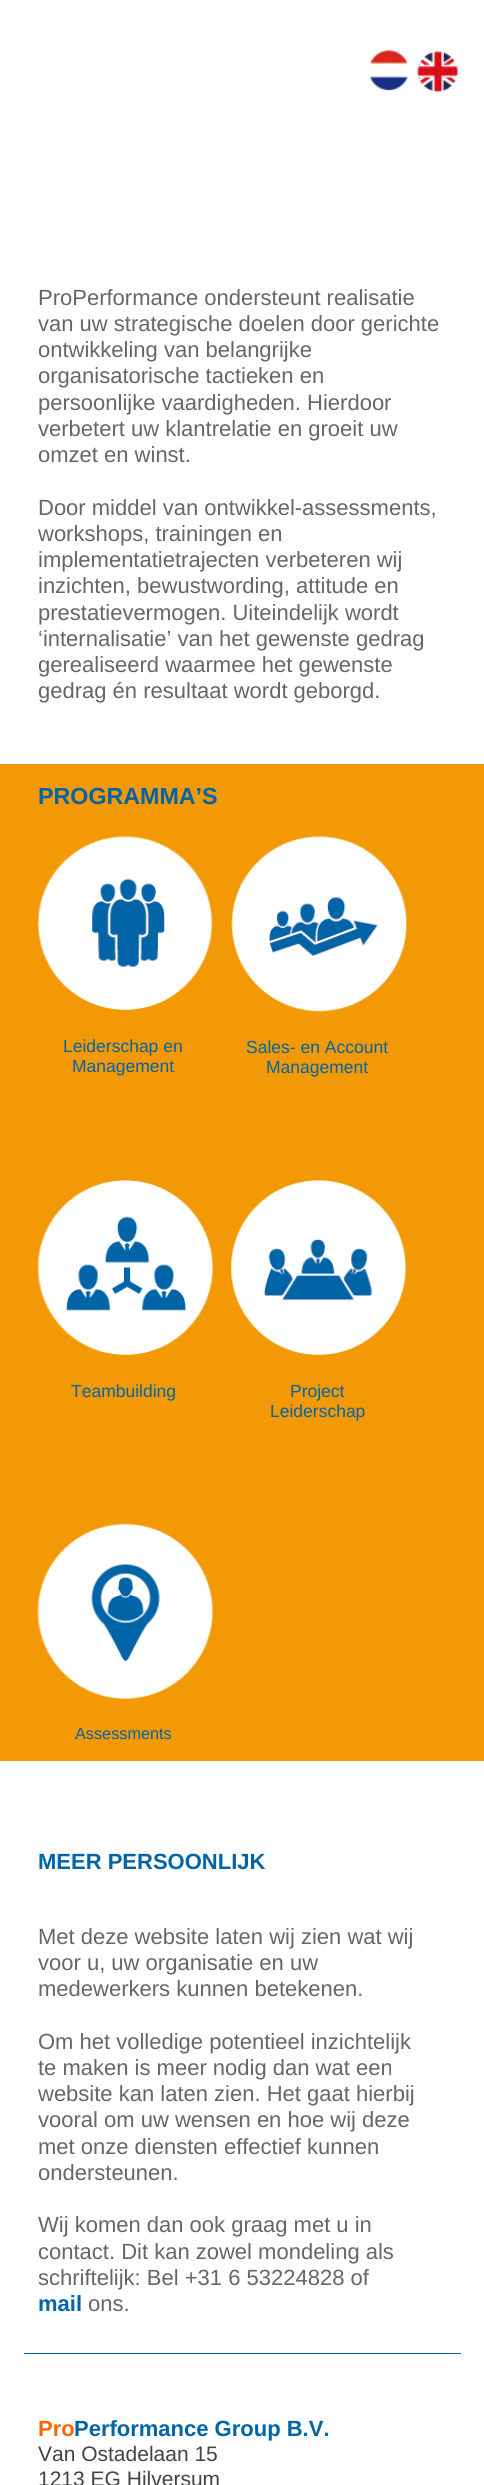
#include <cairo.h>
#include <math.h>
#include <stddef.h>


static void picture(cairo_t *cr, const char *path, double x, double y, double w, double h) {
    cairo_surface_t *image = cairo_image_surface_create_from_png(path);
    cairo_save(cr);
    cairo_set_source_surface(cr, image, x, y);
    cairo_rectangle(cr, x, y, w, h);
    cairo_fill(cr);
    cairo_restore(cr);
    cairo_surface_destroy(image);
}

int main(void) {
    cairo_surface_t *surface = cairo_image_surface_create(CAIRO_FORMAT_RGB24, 484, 2485);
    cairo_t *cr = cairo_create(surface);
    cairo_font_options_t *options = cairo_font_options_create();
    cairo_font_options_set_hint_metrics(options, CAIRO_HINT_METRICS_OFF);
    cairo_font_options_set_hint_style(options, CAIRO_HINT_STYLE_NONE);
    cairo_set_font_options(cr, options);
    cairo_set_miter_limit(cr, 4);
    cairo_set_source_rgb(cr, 1, 1, 1);
    cairo_paint(cr);
    picture(cr, "img1.png", 369, 49, 39, 42);
    picture(cr, "img2.png", 417, 51, 43, 41);
    cairo_select_font_face(cr, "Liberation Sans", CAIRO_FONT_SLANT_NORMAL, CAIRO_FONT_WEIGHT_NORMAL);
    cairo_set_font_size(cr, 22);
    cairo_set_source_rgb(cr, 0.404, 0.4, 0.4);
    cairo_move_to(cr, 38, 305);
    cairo_show_text(cr, "ProPerformance ondersteunt realisatie");
    cairo_move_to(cr, 38, 331);
    cairo_show_text(cr, "van uw strategische doelen door gerichte");
    cairo_move_to(cr, 38, 357);
    cairo_show_text(cr, "ontwikkeling van belangrijke");
    cairo_move_to(cr, 38, 383);
    cairo_show_text(cr, "organisatorische tactieken en");
    cairo_move_to(cr, 38, 410);
    cairo_show_text(cr, "persoonlijke vaardigheden. Hierdoor");
    cairo_move_to(cr, 38, 436);
    cairo_show_text(cr, "verbetert uw klantrelatie en groeit uw");
    cairo_move_to(cr, 38, 462);
    cairo_show_text(cr, "omzet en winst.");
    cairo_move_to(cr, 38, 515);
    cairo_show_text(cr, "Door middel van ontwikkel-assessments,");
    cairo_move_to(cr, 38, 541);
    cairo_show_text(cr, "workshops, trainingen en");
    cairo_move_to(cr, 38, 567);
    cairo_show_text(cr, "implementatietrajecten verbeteren wij");
    cairo_move_to(cr, 38, 593);
    cairo_show_text(cr, "inzichten, bewustwording, attitude en");
    cairo_move_to(cr, 38, 620);
    cairo_show_text(cr, "prestatievermogen. Uiteindelijk wordt");
    cairo_move_to(cr, 38, 646);
    cairo_show_text(cr, "‘internalisatie’ van het gewenste gedrag");
    cairo_move_to(cr, 38, 672);
    cairo_show_text(cr, "gerealiseerd waarmee het gewenste");
    cairo_move_to(cr, 38, 698);
    cairo_show_text(cr, "gedrag én resultaat wordt geborgd.");
    cairo_set_source_rgb(cr, 0.953, 0.6, 0.02);
    cairo_rectangle(cr, 0, 764, 484, 997);
    cairo_fill(cr);
    cairo_select_font_face(cr, "Liberation Sans", CAIRO_FONT_SLANT_NORMAL, CAIRO_FONT_WEIGHT_BOLD);
    cairo_set_font_size(cr, 23.25);
    cairo_set_source_rgb(cr, 0, 0.392, 0.651);
    cairo_move_to(cr, 38, 804);
    cairo_show_text(cr, "PROGRAMMA’S");
    picture(cr, "img3.png", 37, 836, 176, 174);
    cairo_select_font_face(cr, "Liberation Sans", CAIRO_FONT_SLANT_NORMAL, CAIRO_FONT_WEIGHT_NORMAL);
    cairo_set_font_size(cr, 17.5);
    cairo_move_to(cr, 63, 1052);
    cairo_show_text(cr, "Leiderschap en");
    cairo_move_to(cr, 72, 1072);
    cairo_show_text(cr, "Management");
    picture(cr, "img4.png", 231, 836, 176, 176);
    cairo_move_to(cr, 246, 1053);
    cairo_show_text(cr, "Sales- en Account");
    cairo_move_to(cr, 266, 1073);
    cairo_show_text(cr, "Management");
    picture(cr, "img5.png", 37, 1180, 176, 175);
    cairo_move_to(cr, 71, 1397);
    cairo_show_text(cr, "Teambuilding");
    picture(cr, "img6.png", 231, 1180, 176, 175);
    cairo_move_to(cr, 290, 1397);
    cairo_show_text(cr, "Project");
    cairo_move_to(cr, 270, 1417);
    cairo_show_text(cr, "Leiderschap");
    picture(cr, "img7.png", 37, 1523, 176, 176);
    cairo_set_font_size(cr, 16.25);
    cairo_move_to(cr, 75, 1739);
    cairo_show_text(cr, "Assessments");
    cairo_select_font_face(cr, "Liberation Sans", CAIRO_FONT_SLANT_NORMAL, CAIRO_FONT_WEIGHT_BOLD);
    cairo_set_font_size(cr, 22);
    cairo_move_to(cr, 38, 1869);
    cairo_show_text(cr, "MEER PERSOONLIJK");
    cairo_select_font_face(cr, "Liberation Sans", CAIRO_FONT_SLANT_NORMAL, CAIRO_FONT_WEIGHT_NORMAL);
    cairo_set_source_rgb(cr, 0.404, 0.4, 0.4);
    cairo_move_to(cr, 38, 1944);
    cairo_show_text(cr, "Met deze website laten wij zien wat wij");
    cairo_move_to(cr, 38, 1970);
    cairo_show_text(cr, "voor u, uw organisatie en uw");
    cairo_move_to(cr, 38, 1996);
    cairo_show_text(cr, "medewerkers kunnen betekenen.");
    cairo_move_to(cr, 38, 2049);
    cairo_show_text(cr, "Om het volledige potentieel inzichtelijk");
    cairo_move_to(cr, 38, 2075);
    cairo_show_text(cr, "te maken is meer nodig dan wat een");
    cairo_move_to(cr, 38, 2101);
    cairo_show_text(cr, "website kan laten zien. Het gaat hierbij");
    cairo_move_to(cr, 38, 2127);
    cairo_show_text(cr, "vooral om uw wensen en hoe wij deze");
    cairo_move_to(cr, 38, 2154);
    cairo_show_text(cr, "met onze diensten effectief kunnen");
    cairo_move_to(cr, 38, 2180);
    cairo_show_text(cr, "ondersteunen.");
    cairo_move_to(cr, 38, 2232);
    cairo_show_text(cr, "Wij komen dan ook graag met u in");
    cairo_move_to(cr, 38, 2259);
    cairo_show_text(cr, "contact. Dit kan zowel mondeling als");
    cairo_move_to(cr, 38, 2285);
    cairo_show_text(cr, "schriftelijk: Bel +31 6 53224828 of");
    cairo_select_font_face(cr, "Liberation Sans", CAIRO_FONT_SLANT_NORMAL, CAIRO_FONT_WEIGHT_BOLD);
    cairo_set_source_rgb(cr, 0, 0.392, 0.651);
    cairo_move_to(cr, 38, 2311);
    cairo_show_text(cr, "mail");
    cairo_select_font_face(cr, "Liberation Sans", CAIRO_FONT_SLANT_NORMAL, CAIRO_FONT_WEIGHT_NORMAL);
    cairo_set_source_rgb(cr, 0.404, 0.4, 0.4);
    cairo_move_to(cr, 88, 2311);
    cairo_show_text(cr, "ons.");
    cairo_set_source_rgb(cr, 0, 0.392, 0.651);
    cairo_rectangle(cr, 24, 2353, 437, 1);
    cairo_fill(cr);
    cairo_select_font_face(cr, "Liberation Sans", CAIRO_FONT_SLANT_NORMAL, CAIRO_FONT_WEIGHT_BOLD);
    cairo_set_source_rgb(cr, 1, 0.4, 0);
    cairo_move_to(cr, 38, 2436);
    cairo_show_text(cr, "Pro");
    cairo_set_source_rgb(cr, 0, 0.392, 0.651);
    cairo_move_to(cr, 74, 2436);
    cairo_show_text(cr, "Performance Group B.V.");
    cairo_select_font_face(cr, "Liberation Sans", CAIRO_FONT_SLANT_NORMAL, CAIRO_FONT_WEIGHT_NORMAL);
    cairo_set_font_size(cr, 21);
    cairo_set_source_rgb(cr, 0.267, 0.267, 0.267);
    cairo_move_to(cr, 38, 2461);
    cairo_show_text(cr, "Van Ostadelaan 15");
    cairo_move_to(cr, 38, 2486);
    cairo_show_text(cr, "1213 EG Hilversum");
    cairo_surface_write_to_png(surface, "page.png");
    cairo_font_options_destroy(options);
    cairo_destroy(cr);
    cairo_surface_destroy(surface);
    return 0;
}
